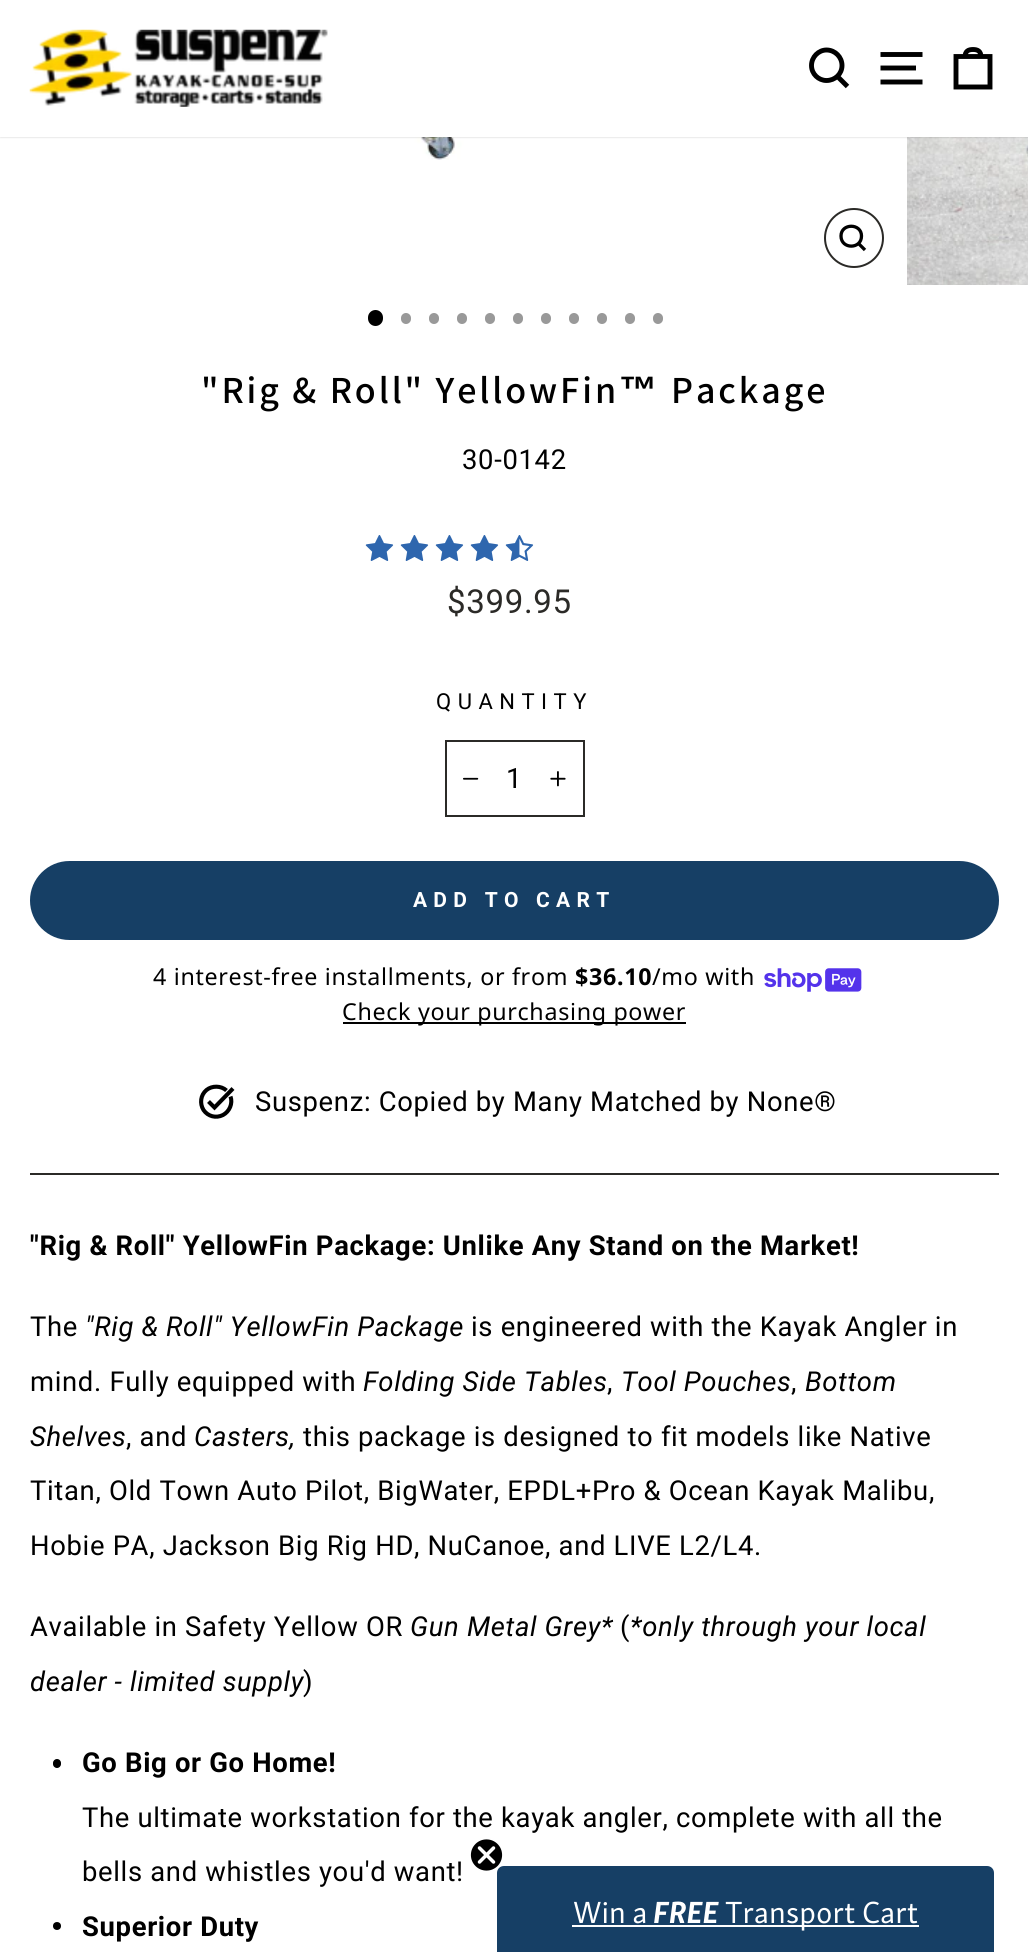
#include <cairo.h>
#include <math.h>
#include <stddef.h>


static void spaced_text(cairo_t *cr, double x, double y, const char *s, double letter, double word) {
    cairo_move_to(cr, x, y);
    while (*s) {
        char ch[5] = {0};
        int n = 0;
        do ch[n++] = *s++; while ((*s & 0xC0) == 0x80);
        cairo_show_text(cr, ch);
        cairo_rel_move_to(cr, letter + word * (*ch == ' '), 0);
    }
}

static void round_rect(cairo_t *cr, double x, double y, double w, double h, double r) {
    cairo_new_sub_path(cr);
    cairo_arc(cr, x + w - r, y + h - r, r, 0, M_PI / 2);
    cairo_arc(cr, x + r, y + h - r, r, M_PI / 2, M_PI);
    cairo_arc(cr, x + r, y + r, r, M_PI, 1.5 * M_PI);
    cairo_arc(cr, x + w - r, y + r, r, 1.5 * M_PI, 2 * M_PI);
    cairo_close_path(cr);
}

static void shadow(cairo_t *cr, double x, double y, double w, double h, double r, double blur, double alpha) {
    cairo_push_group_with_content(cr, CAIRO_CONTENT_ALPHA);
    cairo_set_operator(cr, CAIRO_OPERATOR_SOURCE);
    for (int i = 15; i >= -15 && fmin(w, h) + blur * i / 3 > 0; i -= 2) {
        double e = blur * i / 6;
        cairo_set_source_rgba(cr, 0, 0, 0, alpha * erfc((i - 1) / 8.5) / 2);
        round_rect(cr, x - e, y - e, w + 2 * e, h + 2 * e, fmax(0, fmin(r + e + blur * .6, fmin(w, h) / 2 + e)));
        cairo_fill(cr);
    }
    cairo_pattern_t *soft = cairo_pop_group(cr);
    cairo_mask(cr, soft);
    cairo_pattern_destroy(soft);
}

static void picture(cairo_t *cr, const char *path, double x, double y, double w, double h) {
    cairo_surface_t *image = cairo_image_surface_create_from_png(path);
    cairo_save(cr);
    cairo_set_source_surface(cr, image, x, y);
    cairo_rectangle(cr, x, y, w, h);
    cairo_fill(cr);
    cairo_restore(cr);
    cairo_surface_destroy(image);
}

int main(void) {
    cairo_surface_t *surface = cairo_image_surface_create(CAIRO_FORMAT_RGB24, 1028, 1952);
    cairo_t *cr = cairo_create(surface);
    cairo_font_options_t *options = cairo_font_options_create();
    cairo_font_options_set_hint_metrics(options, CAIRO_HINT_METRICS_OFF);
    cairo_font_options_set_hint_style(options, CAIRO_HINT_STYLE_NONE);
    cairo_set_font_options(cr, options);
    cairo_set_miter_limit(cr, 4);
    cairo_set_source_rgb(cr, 1, 1, 1);
    cairo_paint(cr);
    picture(cr, "img2.png", 186, 137, 347, 23);
    picture(cr, "img3.png", 907, 137, 121, 148);
    cairo_set_source_rgb(cr, 0, 0, 0);
    shadow(cr, 0, 0, 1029, 137, 0, 1, 0.2);
    cairo_set_source_rgb(cr, 1, 1, 1);
    cairo_rectangle(cr, 0, 0, 1028, 137);
    cairo_fill(cr);
    picture(cr, "img1.png", 29, 29, 299, 78);
    cairo_new_path(cr);
    cairo_move_to(cr, 842, 65.5);
    cairo_curve_to(cr, 842, 74, 835, 80.5, 826.5, 80.5);
    cairo_curve_to(cr, 818.5, 80.5, 811.5, 74, 811.5, 65.5);
    cairo_curve_to(cr, 811.5, 57, 818.5, 50, 826.5, 50);
    cairo_curve_to(cr, 835, 50, 842, 57, 842, 65.5);
    cairo_close_path(cr);
    cairo_move_to(cr, 847.5, 86.5);
    cairo_line_to(cr, 837.5, 76.5);
    cairo_set_source_rgb(cr, 0, 0, 0);
    cairo_set_line_width(cr, 4.9);
    cairo_stroke(cr);
    cairo_new_path(cr);
    cairo_move_to(cr, 880.5, 54.5);
    cairo_line_to(cr, 922.5, 54.5);
    cairo_move_to(cr, 880.5, 68);
    cairo_line_to(cr, 916, 68);
    cairo_move_to(cr, 880.5, 82);
    cairo_line_to(cr, 922.5, 82);
    cairo_stroke(cr);
    cairo_new_path(cr);
    cairo_move_to(cr, 956, 56.5);
    cairo_line_to(cr, 990, 56.5);
    cairo_line_to(cr, 990, 87);
    cairo_line_to(cr, 956, 87);
    cairo_close_path(cr);
    cairo_move_to(cr, 965, 57);
    cairo_curve_to(cr, 965, 51, 968.5, 49.5, 973, 49.5);
    cairo_curve_to(cr, 977.5, 49.5, 981, 51, 981, 57);
    cairo_stroke(cr);
    cairo_arc(cr, 854, 238, 29, 0, 2 * M_PI);
    cairo_set_source_rgb(cr, 0.169, 0.165, 0.153);
    cairo_set_line_width(cr, 2);
    cairo_stroke(cr);
    cairo_new_path(cr);
    cairo_move_to(cr, 861.5, 236);
    cairo_curve_to(cr, 861.5, 249.5, 841, 249.5, 841, 236);
    cairo_curve_to(cr, 841, 223, 861.5, 223, 861.5, 236);
    cairo_close_path(cr);
    cairo_move_to(cr, 865, 250);
    cairo_line_to(cr, 858.5, 243.5);
    cairo_set_source_rgb(cr, 0, 0, 0);
    cairo_set_line_width(cr, 3.3);
    cairo_stroke(cr);
    round_rect(cr, 368, 310, 15, 16, 7.5);
    cairo_fill(cr);
    cairo_set_source_rgb(cr, 0.6, 0.6, 0.6);
    round_rect(cr, 401, 313, 10, 11, 5);
    cairo_fill(cr);
    round_rect(cr, 429, 313, 10, 11, 5);
    cairo_fill(cr);
    round_rect(cr, 457, 313, 10, 11, 5);
    cairo_fill(cr);
    round_rect(cr, 485, 313, 10, 11, 5);
    cairo_fill(cr);
    round_rect(cr, 513, 313, 10, 11, 5);
    cairo_fill(cr);
    round_rect(cr, 541, 313, 10, 11, 5);
    cairo_fill(cr);
    round_rect(cr, 569, 313, 10, 11, 5);
    cairo_fill(cr);
    round_rect(cr, 597, 313, 10, 11, 5);
    cairo_fill(cr);
    round_rect(cr, 625, 313, 10, 11, 5);
    cairo_fill(cr);
    round_rect(cr, 653, 313, 10, 11, 5);
    cairo_fill(cr);
    cairo_select_font_face(cr, "Assistant SemiBold", CAIRO_FONT_SLANT_NORMAL, CAIRO_FONT_WEIGHT_NORMAL);
    cairo_set_font_size(cr, 38.25);
    cairo_set_source_rgb(cr, 0, 0, 0);
    spaced_text(cr, 201, 403, "\"Rig & Roll\" YellowFin", 2.9, 0);
    cairo_select_font_face(cr, "Liberation Sans", CAIRO_FONT_SLANT_NORMAL, CAIRO_FONT_WEIGHT_BOLD);
    spaced_text(cr, 619, 403, "™", 2.9, 0);
    cairo_select_font_face(cr, "Assistant SemiBold", CAIRO_FONT_SLANT_NORMAL, CAIRO_FONT_WEIGHT_NORMAL);
    spaced_text(cr, 671, 403, "Package", 2.9, 0);
    cairo_select_font_face(cr, "Roboto", CAIRO_FONT_SLANT_NORMAL, CAIRO_FONT_WEIGHT_NORMAL);
    cairo_set_font_size(cr, 27.4);
    spaced_text(cr, 462, 469, "30-0142", 0.68, 0);
    picture(cr, "img4.png", 365, 535, 29, 26);
    picture(cr, "img4.png", 400, 535, 29, 26);
    picture(cr, "img4.png", 435, 535, 29, 26);
    picture(cr, "img4.png", 470, 535, 29, 26);
    picture(cr, "img5.png", 505, 535, 29, 26);
    cairo_set_font_size(cr, 33);
    cairo_set_source_rgb(cr, 0.169, 0.165, 0.153);
    spaced_text(cr, 447, 613, "$399.95", 0.68, 0);
    cairo_set_font_size(cr, 22);
    cairo_set_source_rgb(cr, 0, 0, 0);
    spaced_text(cr, 436, 709, "QUANTITY", 6.5, 0);
    cairo_rectangle(cr, 446, 741, 138, 75);
    cairo_set_source_rgb(cr, 0.169, 0.165, 0.153);
    cairo_set_line_width(cr, 2);
    cairo_stroke(cr);
    picture(cr, "img6.png", 463, 777, 16, 3);
    cairo_set_font_size(cr, 28);
    cairo_set_source_rgb(cr, 0, 0, 0);
    spaced_text(cr, 506, 788, "1", 1, 0);
    picture(cr, "img7.png", 550, 771, 16, 16);
    cairo_set_source_rgb(cr, 0.086, 0.247, 0.396);
    round_rect(cr, 30, 861, 969, 79, 39.5);
    cairo_fill(cr);
    cairo_select_font_face(cr, "Roboto", CAIRO_FONT_SLANT_NORMAL, CAIRO_FONT_WEIGHT_BOLD);
    cairo_set_font_size(cr, 21);
    cairo_set_source_rgb(cr, 1, 1, 1);
    spaced_text(cr, 413, 907, "ADD TO CART", 6.25, 0);
    cairo_select_font_face(cr, "Noto Sans", CAIRO_FONT_SLANT_NORMAL, CAIRO_FONT_WEIGHT_NORMAL);
    cairo_set_font_size(cr, 23.25);
    cairo_set_source_rgb(cr, 0, 0, 0);
    spaced_text(cr, 153, 985, "4 interest-free installments, or from", 0.68, 0);
    cairo_select_font_face(cr, "Noto Sans", CAIRO_FONT_SLANT_NORMAL, CAIRO_FONT_WEIGHT_BOLD);
    spaced_text(cr, 575, 985, "$36.10", 0.68, 0);
    cairo_select_font_face(cr, "Noto Sans", CAIRO_FONT_SLANT_NORMAL, CAIRO_FONT_WEIGHT_NORMAL);
    spaced_text(cr, 652, 985, "/mo with", 0.68, 0);
    picture(cr, "img8.png", 764, 968, 98, 24);
    cairo_rectangle(cr, 343, 1022, 343, 2);
    cairo_fill(cr);
    spaced_text(cr, 342, 1020, "Check your purchasing power", 0.68, 0);
    cairo_new_path(cr);
    cairo_move_to(cr, 230.5, 1096.5);
    cairo_curve_to(cr, 233, 1103.5, 229.5, 1111.5, 223, 1115);
    cairo_curve_to(cr, 216, 1118.5, 208, 1116.5, 203.5, 1110);
    cairo_curve_to(cr, 199.5, 1103.5, 200.5, 1095, 206.5, 1090);
    cairo_curve_to(cr, 212, 1085.5, 221, 1085.5, 226.5, 1090.5);
    cairo_move_to(cr, 208.5, 1101.5);
    cairo_line_to(cr, 214.5, 1107.5);
    cairo_line_to(cr, 233, 1088.5);
    cairo_set_line_width(cr, 4.1);
    cairo_stroke(cr);
    cairo_select_font_face(cr, "Roboto", CAIRO_FONT_SLANT_NORMAL, CAIRO_FONT_WEIGHT_NORMAL);
    cairo_set_font_size(cr, 27.4);
    spaced_text(cr, 255, 1111, "Suspenz: Copied by Many Matched by None®", 0.68, 0);
    cairo_set_source_rgb(cr, 0.169, 0.165, 0.153);
    cairo_rectangle(cr, 30, 1173, 969, 2);
    cairo_fill(cr);
    cairo_select_font_face(cr, "Roboto", CAIRO_FONT_SLANT_NORMAL, CAIRO_FONT_WEIGHT_BOLD);
    cairo_set_source_rgb(cr, 0, 0, 0);
    spaced_text(cr, 30, 1255, "\"Rig & Roll\" YellowFin Package: Unlike Any Stand on the Market!", 0.68, 0);
    cairo_select_font_face(cr, "Roboto", CAIRO_FONT_SLANT_NORMAL, CAIRO_FONT_WEIGHT_NORMAL);
    spaced_text(cr, 30, 1336, "The", 0.68, 0);
    cairo_select_font_face(cr, "Roboto", CAIRO_FONT_SLANT_ITALIC, CAIRO_FONT_WEIGHT_NORMAL);
    spaced_text(cr, 85, 1336, "\"Rig & Roll\" YellowFin Package", 0.68, 0);
    cairo_select_font_face(cr, "Roboto", CAIRO_FONT_SLANT_NORMAL, CAIRO_FONT_WEIGHT_NORMAL);
    spaced_text(cr, 471, 1336, "is engineered with the Kayak Angler in", 0.68, 0);
    spaced_text(cr, 30, 1391, "mind. Fully equipped with", 0.68, 0);
    cairo_select_font_face(cr, "Roboto", CAIRO_FONT_SLANT_ITALIC, CAIRO_FONT_WEIGHT_NORMAL);
    spaced_text(cr, 363, 1391, "Folding Side Tables", 0.68, 0);
    cairo_select_font_face(cr, "Roboto", CAIRO_FONT_SLANT_NORMAL, CAIRO_FONT_WEIGHT_NORMAL);
    spaced_text(cr, 607, 1391, ",", 0.68, 0);
    cairo_select_font_face(cr, "Roboto", CAIRO_FONT_SLANT_ITALIC, CAIRO_FONT_WEIGHT_NORMAL);
    spaced_text(cr, 621, 1391, "Tool Pouches", 0.68, 0);
    cairo_select_font_face(cr, "Roboto", CAIRO_FONT_SLANT_NORMAL, CAIRO_FONT_WEIGHT_NORMAL);
    spaced_text(cr, 791, 1391, ",", 0.68, 0);
    cairo_select_font_face(cr, "Roboto", CAIRO_FONT_SLANT_ITALIC, CAIRO_FONT_WEIGHT_NORMAL);
    spaced_text(cr, 805, 1391, "Bottom", 0.68, 0);
    spaced_text(cr, 30, 1446, "Shelves", 0.68, 0);
    cairo_select_font_face(cr, "Roboto", CAIRO_FONT_SLANT_NORMAL, CAIRO_FONT_WEIGHT_NORMAL);
    spaced_text(cr, 126, 1446, ", and", 0.68, 0);
    cairo_select_font_face(cr, "Roboto", CAIRO_FONT_SLANT_ITALIC, CAIRO_FONT_WEIGHT_NORMAL);
    spaced_text(cr, 194, 1446, "Casters,", 0.68, 0);
    cairo_select_font_face(cr, "Roboto", CAIRO_FONT_SLANT_NORMAL, CAIRO_FONT_WEIGHT_NORMAL);
    spaced_text(cr, 303, 1446, "this package is designed to fit models like Native", 0.68, 0);
    spaced_text(cr, 30, 1500, "Titan, Old Town Auto Pilot, BigWater, EPDL+Pro & Ocean Kayak Malibu,", 0.68, 0);
    spaced_text(cr, 30, 1555, "Hobie PA, Jackson Big Rig HD, NuCanoe, and LIVE L2/L4.", 0.68, 0);
    spaced_text(cr, 30, 1636, "Available in Safety Yellow OR", 0.68, 0);
    cairo_select_font_face(cr, "Roboto", CAIRO_FONT_SLANT_ITALIC, CAIRO_FONT_WEIGHT_NORMAL);
    spaced_text(cr, 410, 1636, "Gun Metal Grey*", 0.68, 0);
    cairo_select_font_face(cr, "Roboto", CAIRO_FONT_SLANT_NORMAL, CAIRO_FONT_WEIGHT_NORMAL);
    spaced_text(cr, 620, 1636, "(", 0.68, 0);
    cairo_select_font_face(cr, "Roboto", CAIRO_FONT_SLANT_ITALIC, CAIRO_FONT_WEIGHT_NORMAL);
    spaced_text(cr, 630, 1636, "*only through your local", 0.68, 0);
    spaced_text(cr, 30, 1691, "dealer - limited supply", 0.68, 0);
    cairo_select_font_face(cr, "Roboto", CAIRO_FONT_SLANT_NORMAL, CAIRO_FONT_WEIGHT_NORMAL);
    spaced_text(cr, 303, 1691, ")", 0.68, 0);
    round_rect(cr, 53, 1759, 8, 9, 4);
    cairo_fill(cr);
    cairo_select_font_face(cr, "Roboto", CAIRO_FONT_SLANT_NORMAL, CAIRO_FONT_WEIGHT_BOLD);
    spaced_text(cr, 82, 1772, "Go Big or Go Home!", 0.68, 0);
    cairo_select_font_face(cr, "Roboto", CAIRO_FONT_SLANT_NORMAL, CAIRO_FONT_WEIGHT_NORMAL);
    spaced_text(cr, 82, 1827, "The ultimate workstation for the kayak angler, complete with all the", 0.68, 0);
    spaced_text(cr, 82, 1881, "bells and whistles you'd want!", 0.68, 0);
    cairo_new_path(cr);
    cairo_arc(cr, 57, 1926, 4, 0, 2 * M_PI);
    cairo_fill(cr);
    cairo_select_font_face(cr, "Roboto", CAIRO_FONT_SLANT_NORMAL, CAIRO_FONT_WEIGHT_BOLD);
    spaced_text(cr, 82, 1936, "Superior Duty", 0.68, 0);
    cairo_set_source_rgb(cr, 0.086, 0.247, 0.396);
    cairo_new_path(cr);
    cairo_move_to(cr, 504, 1866);
    cairo_line_to(cr, 987, 1866);
    cairo_curve_to(cr, 991, 1866, 994, 1869, 994, 1873);
    cairo_line_to(cr, 994, 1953);
    cairo_line_to(cr, 497, 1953);
    cairo_line_to(cr, 497, 1873);
    cairo_curve_to(cr, 497, 1869, 500, 1866, 504, 1866);
    cairo_close_path(cr);
    cairo_fill(cr);
    cairo_set_source_rgb(cr, 0, 0, 0);
    cairo_arc(cr, 486.5, 1855, 16.5, 0, 2 * M_PI);
    cairo_fill(cr);
    cairo_save(cr);
    cairo_rectangle(cr, 469, 1838, 35, 35);
    cairo_clip(cr);
    cairo_arc(cr, 486.5, 1855, 16.5, 0, 2 * M_PI);
    cairo_set_source_rgb(cr, 1, 1, 1);
    cairo_set_line_width(cr, 1.8);
    cairo_stroke(cr);
    cairo_restore(cr);
    cairo_new_path(cr);
    cairo_move_to(cr, 479.5, 1848);
    cairo_line_to(cr, 493.5, 1862);
    cairo_move_to(cr, 479.5, 1862);
    cairo_line_to(cr, 493.5, 1848);
    cairo_close_path(cr);
    cairo_set_source_rgb(cr, 1, 1, 1);
    cairo_set_line_width(cr, 3.5);
    cairo_set_line_cap(cr, CAIRO_LINE_CAP_ROUND);
    cairo_set_line_join(cr, CAIRO_LINE_JOIN_ROUND);
    cairo_stroke(cr);
    cairo_select_font_face(cr, "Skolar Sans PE", CAIRO_FONT_SLANT_NORMAL, CAIRO_FONT_WEIGHT_NORMAL);
    cairo_set_font_size(cr, 31.5);
    cairo_move_to(cr, 573, 1923);
    cairo_show_text(cr, "Win a");
    cairo_select_font_face(cr, "Skolar Sans PE", CAIRO_FONT_SLANT_ITALIC, CAIRO_FONT_WEIGHT_BOLD);
    cairo_move_to(cr, 653, 1923);
    cairo_show_text(cr, "FREE");
    cairo_rectangle(cr, 572, 1925, 347, 2);
    cairo_fill(cr);
    cairo_select_font_face(cr, "Skolar Sans PE", CAIRO_FONT_SLANT_NORMAL, CAIRO_FONT_WEIGHT_NORMAL);
    cairo_move_to(cr, 725, 1923);
    cairo_show_text(cr, "Transport Cart");
    cairo_surface_write_to_png(surface, "page.png");
    cairo_font_options_destroy(options);
    cairo_destroy(cr);
    cairo_surface_destroy(surface);
    return 0;
}
